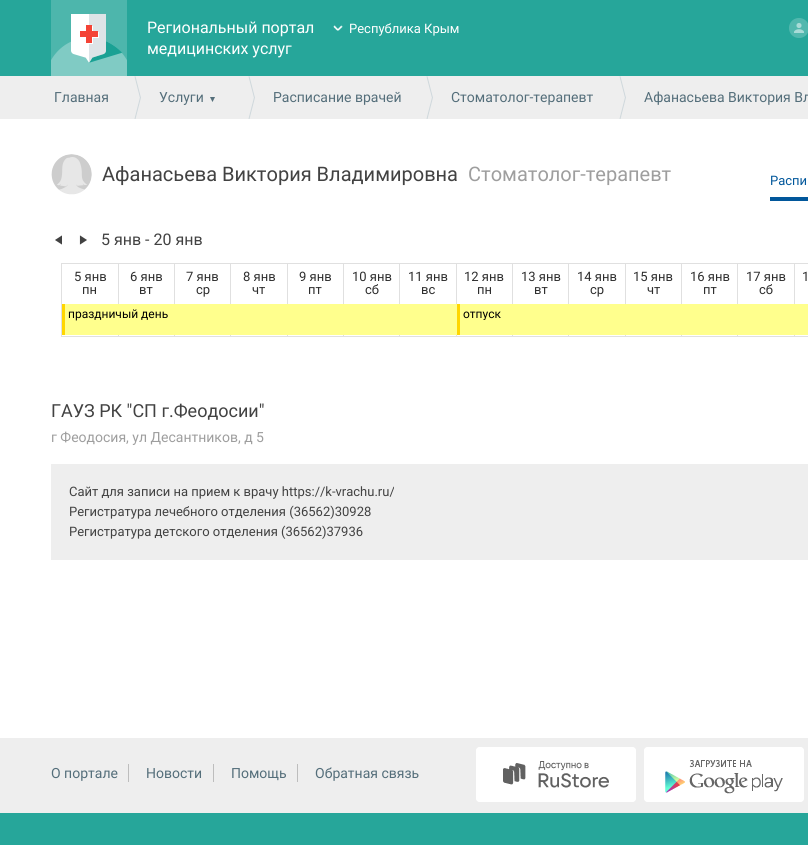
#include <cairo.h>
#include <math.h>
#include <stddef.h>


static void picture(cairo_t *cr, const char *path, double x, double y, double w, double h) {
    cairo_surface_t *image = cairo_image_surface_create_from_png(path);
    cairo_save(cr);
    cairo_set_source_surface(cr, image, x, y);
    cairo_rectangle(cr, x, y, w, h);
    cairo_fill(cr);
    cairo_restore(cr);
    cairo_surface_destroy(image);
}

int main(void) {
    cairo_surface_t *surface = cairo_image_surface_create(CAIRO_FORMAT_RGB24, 808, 845);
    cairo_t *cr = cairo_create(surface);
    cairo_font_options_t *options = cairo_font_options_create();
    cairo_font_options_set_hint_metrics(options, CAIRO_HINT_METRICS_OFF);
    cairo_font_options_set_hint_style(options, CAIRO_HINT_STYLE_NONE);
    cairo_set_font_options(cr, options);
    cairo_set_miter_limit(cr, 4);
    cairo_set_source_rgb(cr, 1, 1, 1);
    cairo_paint(cr);
    cairo_set_source_rgb(cr, 0.149, 0.651, 0.604);
    cairo_rectangle(cr, 0, 0, 808, 76);
    cairo_fill(cr);
    picture(cr, "img1.png", 51, 0, 76, 76);
    cairo_select_font_face(cr, "Roboto", CAIRO_FONT_SLANT_NORMAL, CAIRO_FONT_WEIGHT_NORMAL);
    cairo_set_font_size(cr, 16);
    cairo_set_source_rgb(cr, 1, 1, 1);
    cairo_move_to(cr, 147, 33);
    cairo_show_text(cr, "Региональный портал");
    cairo_move_to(cr, 147, 54);
    cairo_show_text(cr, "медицинских услуг");
    picture(cr, "img2.png", 333, 25, 10, 6);
    cairo_set_font_size(cr, 13);
    cairo_move_to(cr, 349, 33);
    cairo_show_text(cr, "Республика Крым");
    picture(cr, "img3.png", 789, 18, 19, 20);
    cairo_set_source_rgb(cr, 0.933, 0.933, 0.933);
    cairo_rectangle(cr, 0, 76, 808, 43);
    cairo_fill(cr);
    cairo_set_font_size(cr, 14);
    cairo_set_source_rgb(cr, 0.329, 0.431, 0.478);
    cairo_move_to(cr, 54, 102);
    cairo_show_text(cr, "Главная");
    picture(cr, "img4.png", 134, 76, 7, 43);
    cairo_move_to(cr, 159, 102);
    cairo_show_text(cr, "Услуги");
    picture(cr, "img5.png", 210, 97, 5, 5);
    picture(cr, "img4.png", 248, 76, 7, 43);
    cairo_move_to(cr, 273, 102);
    cairo_show_text(cr, "Расписание врачей");
    picture(cr, "img4.png", 426, 76, 7, 43);
    cairo_move_to(cr, 451, 102);
    cairo_show_text(cr, "Стоматолог-терапевт");
    picture(cr, "img4.png", 619, 76, 7, 43);
    cairo_move_to(cr, 644, 102);
    cairo_show_text(cr, "Афанасьева Виктория Вл");
    picture(cr, "img6.png", 51, 154, 41, 41);
    cairo_set_font_size(cr, 20);
    cairo_set_source_rgb(cr, 0.259, 0.259, 0.259);
    cairo_move_to(cr, 102, 181);
    cairo_show_text(cr, "Афанасьева Виктория Владимировна");
    cairo_set_source_rgb(cr, 0.62, 0.62, 0.62);
    cairo_move_to(cr, 468, 181);
    cairo_show_text(cr, "Стоматолог-терапевт");
    cairo_set_source_rgb(cr, 0.004, 0.341, 0.608);
    cairo_rectangle(cr, 770, 197, 38, 4);
    cairo_fill(cr);
    cairo_set_font_size(cr, 13);
    cairo_move_to(cr, 770, 185);
    cairo_show_text(cr, "Распи");
    picture(cr, "img7.png", 55, 235, 7, 10);
    picture(cr, "img8.png", 79, 235, 8, 10);
    cairo_set_font_size(cr, 16);
    cairo_set_source_rgb(cr, 0.259, 0.259, 0.259);
    cairo_move_to(cr, 101, 245);
    cairo_show_text(cr, "5 янв - 20 янв");
    cairo_rectangle(cr, 61.5, 263.5, 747, 73);
    cairo_set_source_rgb(cr, 0.878, 0.878, 0.878);
    cairo_set_line_width(cr, 1);
    cairo_stroke(cr);
    cairo_set_font_size(cr, 13);
    cairo_set_source_rgb(cr, 0.18, 0.18, 0.18);
    cairo_move_to(cr, 74, 281);
    cairo_show_text(cr, "5 янв");
    cairo_move_to(cr, 82, 294);
    cairo_show_text(cr, "пн");
    cairo_set_source_rgb(cr, 0.878, 0.878, 0.878);
    cairo_rectangle(cr, 118, 264, 1, 40);
    cairo_fill(cr);
    cairo_set_source_rgb(cr, 0.18, 0.18, 0.18);
    cairo_move_to(cr, 130, 281);
    cairo_show_text(cr, "6 янв");
    cairo_move_to(cr, 139, 294);
    cairo_show_text(cr, "вт");
    cairo_set_source_rgb(cr, 0.878, 0.878, 0.878);
    cairo_rectangle(cr, 174, 264, 1, 40);
    cairo_fill(cr);
    cairo_set_source_rgb(cr, 0.18, 0.18, 0.18);
    cairo_move_to(cr, 186, 281);
    cairo_show_text(cr, "7 янв");
    cairo_move_to(cr, 196, 294);
    cairo_show_text(cr, "ср");
    cairo_set_source_rgb(cr, 0.878, 0.878, 0.878);
    cairo_rectangle(cr, 230, 264, 1, 40);
    cairo_fill(cr);
    cairo_set_source_rgb(cr, 0.18, 0.18, 0.18);
    cairo_move_to(cr, 243, 281);
    cairo_show_text(cr, "8 янв");
    cairo_move_to(cr, 252, 294);
    cairo_show_text(cr, "чт");
    cairo_set_source_rgb(cr, 0.878, 0.878, 0.878);
    cairo_rectangle(cr, 287, 264, 1, 40);
    cairo_fill(cr);
    cairo_set_source_rgb(cr, 0.18, 0.18, 0.18);
    cairo_move_to(cr, 299, 281);
    cairo_show_text(cr, "9 янв");
    cairo_move_to(cr, 308, 294);
    cairo_show_text(cr, "пт");
    cairo_set_source_rgb(cr, 0.878, 0.878, 0.878);
    cairo_rectangle(cr, 343, 264, 1, 40);
    cairo_fill(cr);
    cairo_set_source_rgb(cr, 0.18, 0.18, 0.18);
    cairo_move_to(cr, 352, 281);
    cairo_show_text(cr, "10 янв");
    cairo_move_to(cr, 365, 294);
    cairo_show_text(cr, "сб");
    cairo_set_source_rgb(cr, 0.878, 0.878, 0.878);
    cairo_rectangle(cr, 399, 264, 1, 40);
    cairo_fill(cr);
    cairo_set_source_rgb(cr, 0.18, 0.18, 0.18);
    cairo_move_to(cr, 408, 281);
    cairo_show_text(cr, "11 янв");
    cairo_move_to(cr, 421, 294);
    cairo_show_text(cr, "вс");
    cairo_set_source_rgb(cr, 0.878, 0.878, 0.878);
    cairo_rectangle(cr, 456, 264, 1, 40);
    cairo_fill(cr);
    cairo_set_source_rgb(cr, 0.18, 0.18, 0.18);
    cairo_move_to(cr, 464, 281);
    cairo_show_text(cr, "12 янв");
    cairo_move_to(cr, 477, 294);
    cairo_show_text(cr, "пн");
    cairo_set_source_rgb(cr, 0.878, 0.878, 0.878);
    cairo_rectangle(cr, 512, 264, 1, 40);
    cairo_fill(cr);
    cairo_set_source_rgb(cr, 0.18, 0.18, 0.18);
    cairo_move_to(cr, 521, 281);
    cairo_show_text(cr, "13 янв");
    cairo_move_to(cr, 534, 294);
    cairo_show_text(cr, "вт");
    cairo_set_source_rgb(cr, 0.878, 0.878, 0.878);
    cairo_rectangle(cr, 568, 264, 1, 40);
    cairo_fill(cr);
    cairo_set_source_rgb(cr, 0.18, 0.18, 0.18);
    cairo_move_to(cr, 577, 281);
    cairo_show_text(cr, "14 янв");
    cairo_move_to(cr, 590, 294);
    cairo_show_text(cr, "ср");
    cairo_set_source_rgb(cr, 0.878, 0.878, 0.878);
    cairo_rectangle(cr, 625, 264, 1, 40);
    cairo_fill(cr);
    cairo_set_source_rgb(cr, 0.18, 0.18, 0.18);
    cairo_move_to(cr, 633, 281);
    cairo_show_text(cr, "15 янв");
    cairo_move_to(cr, 647, 294);
    cairo_show_text(cr, "чт");
    cairo_set_source_rgb(cr, 0.878, 0.878, 0.878);
    cairo_rectangle(cr, 681, 264, 1, 40);
    cairo_fill(cr);
    cairo_set_source_rgb(cr, 0.18, 0.18, 0.18);
    cairo_move_to(cr, 690, 281);
    cairo_show_text(cr, "16 янв");
    cairo_move_to(cr, 703, 294);
    cairo_show_text(cr, "пт");
    cairo_set_source_rgb(cr, 0.878, 0.878, 0.878);
    cairo_rectangle(cr, 737, 264, 1, 40);
    cairo_fill(cr);
    cairo_set_source_rgb(cr, 0.18, 0.18, 0.18);
    cairo_move_to(cr, 746, 281);
    cairo_show_text(cr, "17 янв");
    cairo_move_to(cr, 759, 294);
    cairo_show_text(cr, "сб");
    cairo_set_source_rgb(cr, 0.878, 0.878, 0.878);
    cairo_rectangle(cr, 794, 264, 1, 40);
    cairo_fill(cr);
    cairo_set_source_rgb(cr, 0.18, 0.18, 0.18);
    cairo_move_to(cr, 802, 281);
    cairo_show_text(cr, "1");
    cairo_set_source_rgb(cr, 1, 1, 0.553);
    cairo_rectangle(cr, 65, 304, 392, 31);
    cairo_fill(cr);
    cairo_set_source_rgb(cr, 1, 0.839, 0);
    cairo_rectangle(cr, 62, 304, 3, 31);
    cairo_fill(cr);
    cairo_set_font_size(cr, 12);
    cairo_set_source_rgb(cr, 0, 0, 0);
    cairo_move_to(cr, 68, 318);
    cairo_show_text(cr, "праздничый день");
    cairo_set_source_rgb(cr, 0.878, 0.878, 0.878);
    cairo_rectangle(cr, 456, 335, 1, 1);
    cairo_fill(cr);
    cairo_set_source_rgb(cr, 1, 1, 0.553);
    cairo_rectangle(cr, 460, 304, 348, 31);
    cairo_fill(cr);
    cairo_set_source_rgb(cr, 1, 0.839, 0);
    cairo_rectangle(cr, 457, 304, 3, 31);
    cairo_fill(cr);
    cairo_save(cr);
    cairo_rectangle(cr, 463, 308, 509, 12);
    cairo_clip(cr);
    cairo_set_source_rgb(cr, 0, 0, 0);
    cairo_move_to(cr, 463, 318);
    cairo_show_text(cr, "отпуск");
    cairo_restore(cr);
    cairo_set_source_rgb(cr, 0.878, 0.878, 0.878);
    cairo_rectangle(cr, 118, 335, 1, 1);
    cairo_fill(cr);
    cairo_rectangle(cr, 174, 335, 1, 1);
    cairo_fill(cr);
    cairo_rectangle(cr, 230, 335, 1, 1);
    cairo_fill(cr);
    cairo_rectangle(cr, 287, 335, 1, 1);
    cairo_fill(cr);
    cairo_rectangle(cr, 343, 335, 1, 1);
    cairo_fill(cr);
    cairo_rectangle(cr, 399, 335, 1, 1);
    cairo_fill(cr);
    cairo_rectangle(cr, 512, 335, 1, 1);
    cairo_fill(cr);
    cairo_rectangle(cr, 568, 335, 1, 1);
    cairo_fill(cr);
    cairo_rectangle(cr, 625, 335, 1, 1);
    cairo_fill(cr);
    cairo_rectangle(cr, 681, 335, 1, 1);
    cairo_fill(cr);
    cairo_rectangle(cr, 737, 335, 1, 1);
    cairo_fill(cr);
    cairo_rectangle(cr, 794, 335, 1, 1);
    cairo_fill(cr);
    cairo_set_font_size(cr, 18);
    cairo_set_source_rgb(cr, 0.259, 0.259, 0.259);
    cairo_move_to(cr, 51, 417);
    cairo_show_text(cr, "ГАУЗ РК \"СП г.Феодосии\"");
    cairo_set_font_size(cr, 14);
    cairo_set_source_rgb(cr, 0.62, 0.62, 0.62);
    cairo_move_to(cr, 51, 442);
    cairo_show_text(cr, "г Феодосия, ул Десантников, д 5");
    cairo_set_source_rgb(cr, 0.933, 0.933, 0.933);
    cairo_rectangle(cr, 51, 464, 757, 96);
    cairo_fill(cr);
    cairo_set_font_size(cr, 13);
    cairo_set_source_rgb(cr, 0.259, 0.259, 0.259);
    cairo_move_to(cr, 69, 496);
    cairo_show_text(cr, "Сайт для записи на прием к врачу https://k-vrachu.ru/");
    cairo_move_to(cr, 69, 516);
    cairo_show_text(cr, "Регистратура лечебного отделения (36562)30928");
    cairo_move_to(cr, 69, 536);
    cairo_show_text(cr, "Регистратура детского отделения (36562)37936");
    cairo_set_source_rgb(cr, 0.933, 0.933, 0.933);
    cairo_rectangle(cr, 0, 738, 808, 75);
    cairo_fill(cr);
    cairo_set_font_size(cr, 14);
    cairo_set_source_rgb(cr, 0.329, 0.431, 0.478);
    cairo_move_to(cr, 51, 778);
    cairo_show_text(cr, "О портале");
    cairo_set_source_rgb(cr, 0.741, 0.741, 0.741);
    cairo_rectangle(cr, 128, 764, 1, 18);
    cairo_fill(cr);
    cairo_set_source_rgb(cr, 0.329, 0.431, 0.478);
    cairo_move_to(cr, 146, 778);
    cairo_show_text(cr, "Новости");
    cairo_set_source_rgb(cr, 0.741, 0.741, 0.741);
    cairo_rectangle(cr, 213, 764, 1, 18);
    cairo_fill(cr);
    cairo_set_source_rgb(cr, 0.329, 0.431, 0.478);
    cairo_move_to(cr, 231, 778);
    cairo_show_text(cr, "Помощь");
    cairo_set_source_rgb(cr, 0.741, 0.741, 0.741);
    cairo_rectangle(cr, 297, 764, 1, 18);
    cairo_fill(cr);
    cairo_set_source_rgb(cr, 0.329, 0.431, 0.478);
    cairo_move_to(cr, 315, 778);
    cairo_show_text(cr, "Обратная связь");
    picture(cr, "img9.png", 476, 747, 160, 55);
    picture(cr, "img10.png", 644, 747, 160, 55);
    cairo_set_source_rgb(cr, 0.149, 0.651, 0.604);
    cairo_rectangle(cr, 0, 813, 808, 32);
    cairo_fill(cr);
    cairo_surface_write_to_png(surface, "page.png");
    cairo_font_options_destroy(options);
    cairo_destroy(cr);
    cairo_surface_destroy(surface);
    return 0;
}
